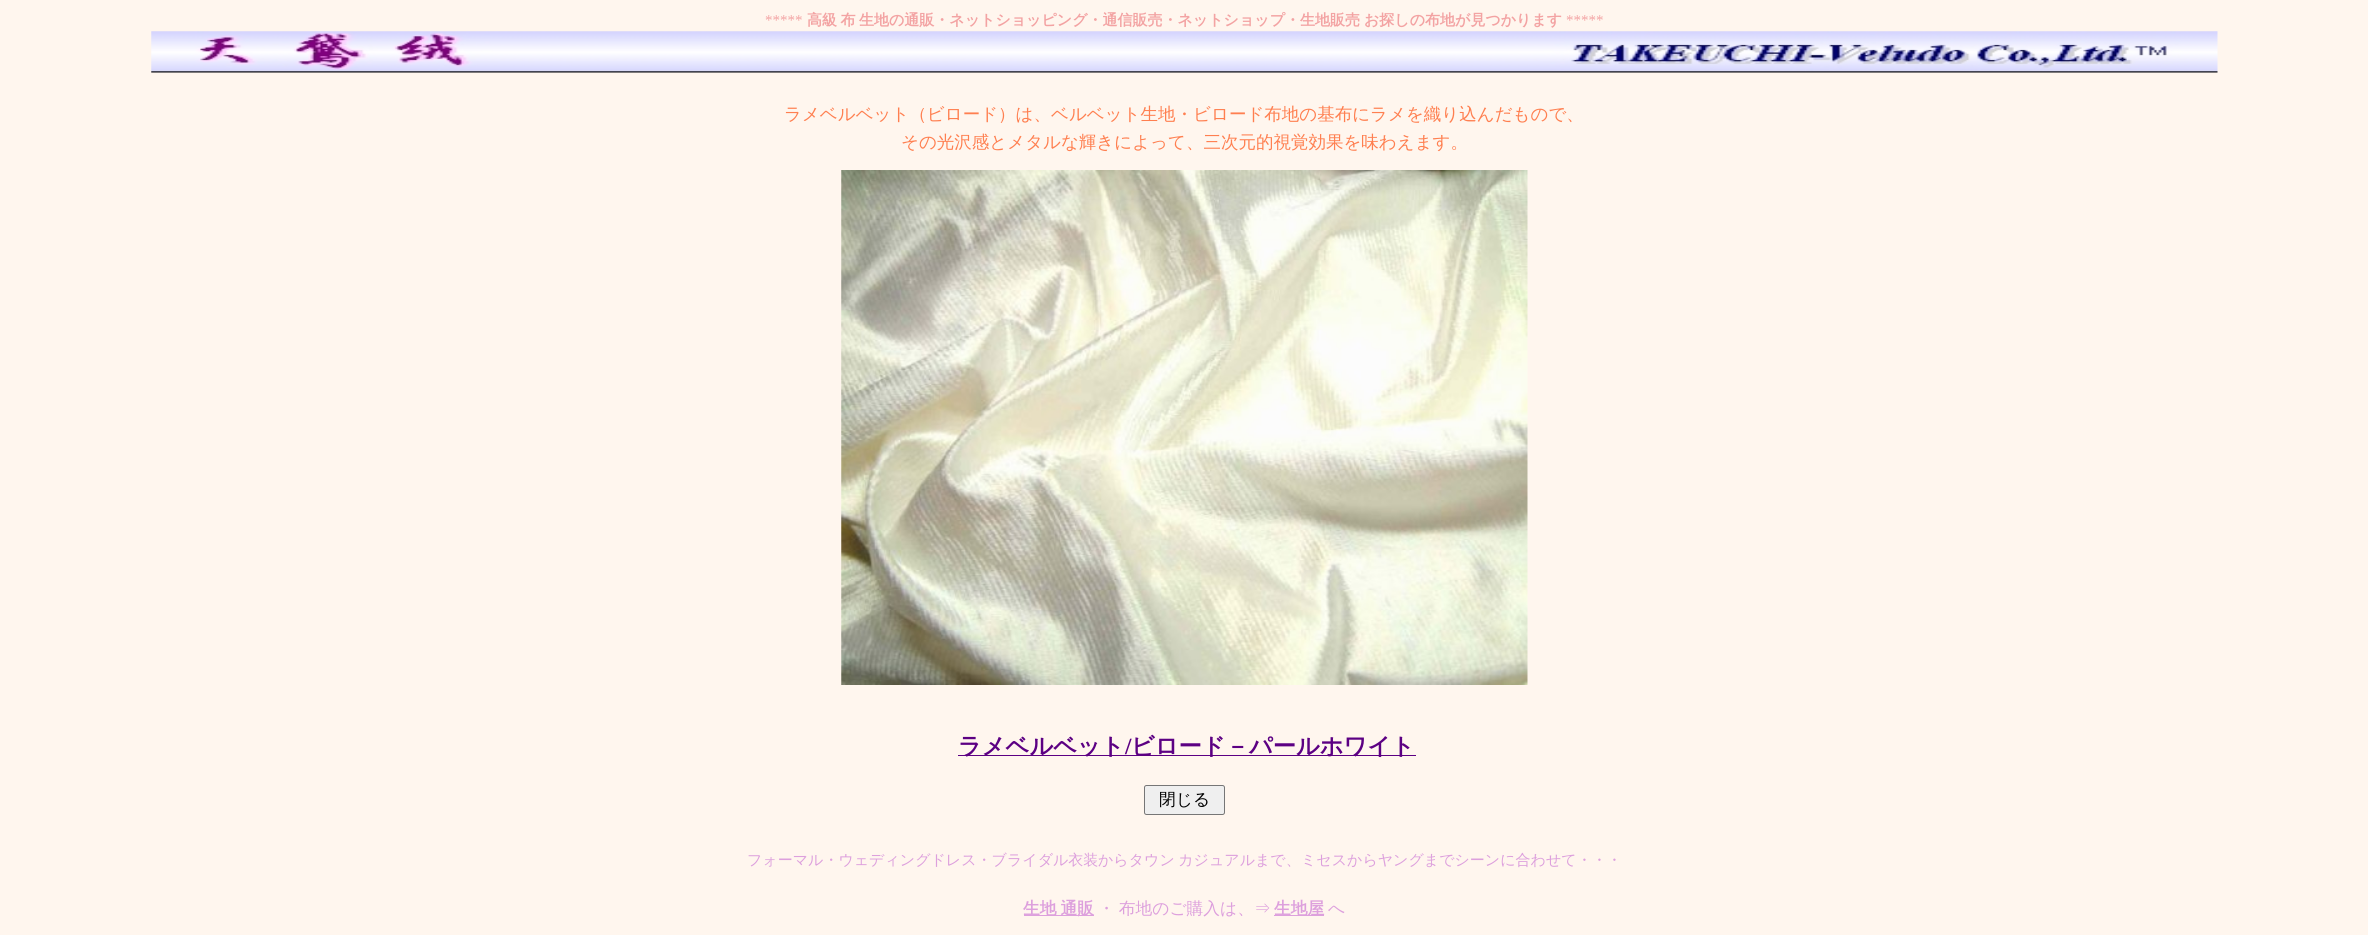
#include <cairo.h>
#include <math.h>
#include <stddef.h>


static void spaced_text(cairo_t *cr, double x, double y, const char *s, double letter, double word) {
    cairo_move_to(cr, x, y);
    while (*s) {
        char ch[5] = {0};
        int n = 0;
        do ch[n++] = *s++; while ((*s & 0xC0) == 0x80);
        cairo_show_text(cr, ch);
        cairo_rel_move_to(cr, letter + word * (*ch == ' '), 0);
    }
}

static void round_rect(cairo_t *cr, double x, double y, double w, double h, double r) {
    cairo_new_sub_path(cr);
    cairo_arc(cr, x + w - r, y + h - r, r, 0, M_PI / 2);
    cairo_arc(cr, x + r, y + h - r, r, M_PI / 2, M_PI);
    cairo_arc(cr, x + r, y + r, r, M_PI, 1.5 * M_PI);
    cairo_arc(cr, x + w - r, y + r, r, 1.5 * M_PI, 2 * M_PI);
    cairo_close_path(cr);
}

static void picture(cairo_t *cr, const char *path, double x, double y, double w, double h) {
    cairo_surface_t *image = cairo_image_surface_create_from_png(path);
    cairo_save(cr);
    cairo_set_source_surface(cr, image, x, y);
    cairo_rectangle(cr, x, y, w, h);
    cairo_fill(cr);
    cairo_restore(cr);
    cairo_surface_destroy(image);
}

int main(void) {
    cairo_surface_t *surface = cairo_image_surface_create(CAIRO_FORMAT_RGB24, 2368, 935);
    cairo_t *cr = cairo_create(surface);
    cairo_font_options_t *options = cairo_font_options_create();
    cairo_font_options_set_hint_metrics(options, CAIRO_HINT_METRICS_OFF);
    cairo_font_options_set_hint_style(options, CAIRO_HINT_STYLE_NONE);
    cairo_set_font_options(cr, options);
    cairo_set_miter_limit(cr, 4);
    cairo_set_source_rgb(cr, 1, 0.961, 0.933);
    cairo_paint(cr);
    cairo_select_font_face(cr, "Liberation Serif", CAIRO_FONT_SLANT_NORMAL, CAIRO_FONT_WEIGHT_NORMAL);
    cairo_set_font_size(cr, 15);
    cairo_set_source_rgb(cr, 0.953, 0.639, 0.639);
    cairo_move_to(cr, 765, 25);
    cairo_show_text(cr, "*****");
    cairo_select_font_face(cr, "WenQuanYi Zen Hei", CAIRO_FONT_SLANT_NORMAL, CAIRO_FONT_WEIGHT_BOLD);
    spaced_text(cr, 807, 25, "高級 布", 0, -1);
    cairo_move_to(cr, 859, 25);
    cairo_show_text(cr, "生地の通販・ネットショッピング・通信販売・ネットショップ・生地販売");
    cairo_move_to(cr, 1364, 25);
    cairo_show_text(cr, "お探しの布地が見つかります");
    cairo_select_font_face(cr, "Liberation Serif", CAIRO_FONT_SLANT_NORMAL, CAIRO_FONT_WEIGHT_NORMAL);
    cairo_move_to(cr, 1566, 25);
    cairo_show_text(cr, "*****");
    picture(cr, "img1.png", 151, 31, 2067, 42);
    cairo_select_font_face(cr, "WenQuanYi Zen Hei Medium", CAIRO_FONT_SLANT_NORMAL, CAIRO_FONT_WEIGHT_NORMAL);
    cairo_set_font_size(cr, 17.5);
    cairo_set_source_rgb(cr, 1, 0.498, 0.314);
    cairo_move_to(cr, 784, 120);
    cairo_show_text(cr, "ラメベルベット（ビロード）は、ベルベット生地・ビロード布地の基布にラメを織り込んだもので、");
    cairo_move_to(cr, 901, 148);
    cairo_show_text(cr, "その光沢感とメタルな輝きによって、三次元的視覚効果を味わえます。");
    picture(cr, "img2.png", 841, 170, 687, 515);
    cairo_set_source_rgb(cr, 0.361, 0, 0.514);
    cairo_rectangle(cr, 958, 755, 458, 1);
    cairo_fill(cr);
    cairo_select_font_face(cr, "WenQuanYi Zen Hei", CAIRO_FONT_SLANT_NORMAL, CAIRO_FONT_WEIGHT_BOLD);
    cairo_set_font_size(cr, 23.25);
    cairo_move_to(cr, 958, 754);
    cairo_show_text(cr, "ラメベルベット");
    cairo_select_font_face(cr, "Liberation Serif", CAIRO_FONT_SLANT_NORMAL, CAIRO_FONT_WEIGHT_BOLD);
    cairo_move_to(cr, 1125, 754);
    cairo_show_text(cr, "/");
    cairo_select_font_face(cr, "WenQuanYi Zen Hei", CAIRO_FONT_SLANT_NORMAL, CAIRO_FONT_WEIGHT_BOLD);
    cairo_move_to(cr, 1131, 754);
    cairo_show_text(cr, "ビロード－パールホワイト");
    cairo_set_source_rgb(cr, 0.937, 0.937, 0.937);
    round_rect(cr, 1144.5, 785.5, 80, 29, 2);
    cairo_fill_preserve(cr);
    cairo_set_source_rgb(cr, 0.463, 0.463, 0.463);
    cairo_set_line_width(cr, 1);
    cairo_stroke(cr);
    cairo_select_font_face(cr, "WenQuanYi Zen Hei Medium", CAIRO_FONT_SLANT_NORMAL, CAIRO_FONT_WEIGHT_NORMAL);
    cairo_set_font_size(cr, 16.75);
    cairo_set_source_rgb(cr, 0, 0, 0);
    cairo_move_to(cr, 1159, 805);
    cairo_show_text(cr, "閉じる");
    cairo_set_font_size(cr, 15);
    cairo_set_source_rgb(cr, 0.867, 0.627, 0.867);
    cairo_move_to(cr, 747, 865);
    cairo_show_text(cr, "フォーマル・ウェディングドレス・ブライダル衣装");
    spaced_text(cr, 1098, 865, "からタウン カジュアルまで、", 0, -1);
    cairo_move_to(cr, 1301, 865);
    cairo_show_text(cr, "ミセスからヤングまでシーンに合わせて・・・");
    cairo_rectangle(cr, 1024, 915, 70, 1);
    cairo_fill(cr);
    cairo_select_font_face(cr, "WenQuanYi Zen Hei", CAIRO_FONT_SLANT_NORMAL, CAIRO_FONT_WEIGHT_BOLD);
    cairo_set_font_size(cr, 16.75);
    spaced_text(cr, 1023, 914, "生地 通販", 0, -1);
    cairo_select_font_face(cr, "WenQuanYi Zen Hei Medium", CAIRO_FONT_SLANT_NORMAL, CAIRO_FONT_WEIGHT_NORMAL);
    spaced_text(cr, 1098, 914, "・ 布地のご購入は、⇒", 0, -1);
    cairo_rectangle(cr, 1274, 915, 50, 1);
    cairo_fill(cr);
    cairo_select_font_face(cr, "WenQuanYi Zen Hei", CAIRO_FONT_SLANT_NORMAL, CAIRO_FONT_WEIGHT_BOLD);
    cairo_move_to(cr, 1274, 914);
    cairo_show_text(cr, "生地屋");
    cairo_select_font_face(cr, "WenQuanYi Zen Hei Medium", CAIRO_FONT_SLANT_NORMAL, CAIRO_FONT_WEIGHT_NORMAL);
    cairo_move_to(cr, 1328, 914);
    cairo_show_text(cr, "へ");
    cairo_surface_write_to_png(surface, "page.png");
    cairo_font_options_destroy(options);
    cairo_destroy(cr);
    cairo_surface_destroy(surface);
    return 0;
}
